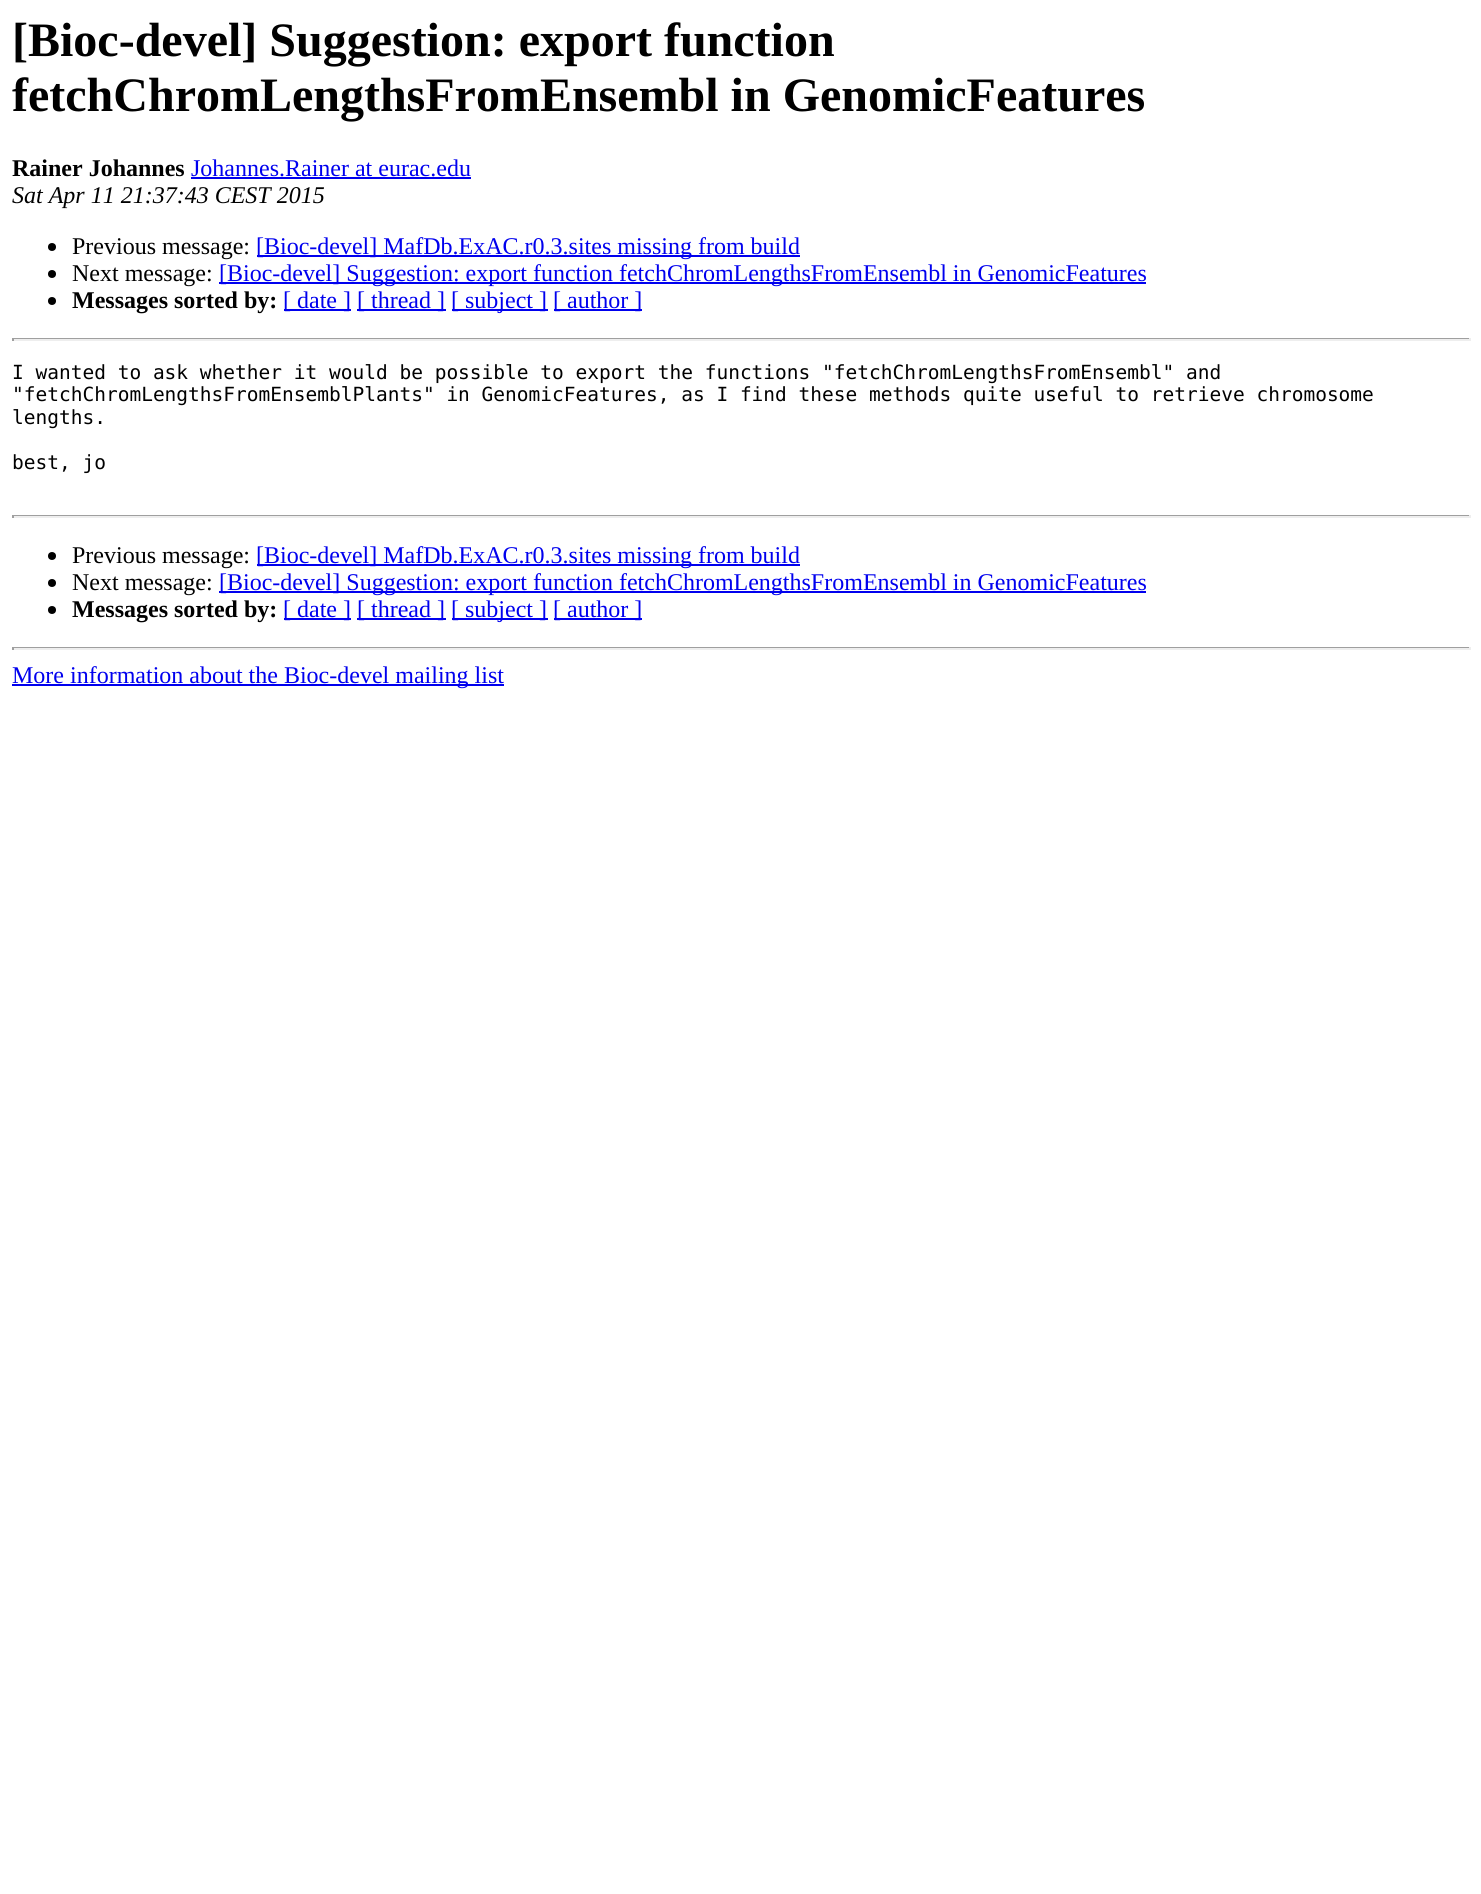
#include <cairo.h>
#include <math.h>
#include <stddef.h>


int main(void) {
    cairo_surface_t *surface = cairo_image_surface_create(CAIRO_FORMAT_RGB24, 1481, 1894);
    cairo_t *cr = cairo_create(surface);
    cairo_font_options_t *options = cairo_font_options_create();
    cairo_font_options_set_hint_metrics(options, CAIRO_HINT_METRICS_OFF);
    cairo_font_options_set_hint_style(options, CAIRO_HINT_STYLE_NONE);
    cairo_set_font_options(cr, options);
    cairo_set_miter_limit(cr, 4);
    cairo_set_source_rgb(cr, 1, 1, 1);
    cairo_paint(cr);
    cairo_select_font_face(cr, "Liberation Serif", CAIRO_FONT_SLANT_NORMAL, CAIRO_FONT_WEIGHT_BOLD);
    cairo_set_font_size(cr, 48);
    cairo_set_source_rgb(cr, 0, 0, 0);
    cairo_move_to(cr, 12, 56);
    cairo_show_text(cr, "[Bioc-devel] Suggestion: export function");
    cairo_move_to(cr, 12, 111);
    cairo_show_text(cr, "fetchChromLengthsFromEnsembl in GenomicFeatures");
    cairo_set_font_size(cr, 24);
    cairo_move_to(cr, 12, 176);
    cairo_show_text(cr, "Rainer Johannes");
    cairo_select_font_face(cr, "Liberation Serif", CAIRO_FONT_SLANT_NORMAL, CAIRO_FONT_WEIGHT_NORMAL);
    cairo_set_source_rgb(cr, 0, 0, 0.933);
    cairo_move_to(cr, 191, 176);
    cairo_show_text(cr, "Johannes.Rainer at eurac.edu");
    cairo_rectangle(cr, 191, 177, 280, 2);
    cairo_fill(cr);
    cairo_select_font_face(cr, "Liberation Serif", CAIRO_FONT_SLANT_ITALIC, CAIRO_FONT_WEIGHT_NORMAL);
    cairo_set_source_rgb(cr, 0, 0, 0);
    cairo_move_to(cr, 12, 203);
    cairo_show_text(cr, "Sat Apr 11 21:37:43 CEST 2015");
    cairo_new_path(cr);
    cairo_arc(cr, 52, 247, 4, 0, 2 * M_PI);
    cairo_fill(cr);
    cairo_select_font_face(cr, "Liberation Serif", CAIRO_FONT_SLANT_NORMAL, CAIRO_FONT_WEIGHT_NORMAL);
    cairo_move_to(cr, 72, 254);
    cairo_show_text(cr, "Previous message:");
    cairo_set_source_rgb(cr, 0, 0, 0.933);
    cairo_rectangle(cr, 257, 255, 543, 2);
    cairo_fill(cr);
    cairo_move_to(cr, 256, 254);
    cairo_show_text(cr, "[Bioc-devel] MafDb.ExAC.r0.3.sites missing from build");
    cairo_set_source_rgb(cr, 0, 0, 0);
    cairo_new_path(cr);
    cairo_arc(cr, 52, 274, 4, 0, 2 * M_PI);
    cairo_fill(cr);
    cairo_move_to(cr, 72, 281);
    cairo_show_text(cr, "Next message:");
    cairo_set_source_rgb(cr, 0, 0, 0.933);
    cairo_rectangle(cr, 219, 282, 927, 2);
    cairo_fill(cr);
    cairo_move_to(cr, 219, 281);
    cairo_show_text(cr, "[Bioc-devel] Suggestion: export function fetchChromLengthsFromEnsembl in GenomicFeatures");
    cairo_set_source_rgb(cr, 0, 0, 0);
    cairo_new_path(cr);
    cairo_arc(cr, 52, 301, 4, 0, 2 * M_PI);
    cairo_fill(cr);
    cairo_select_font_face(cr, "Liberation Serif", CAIRO_FONT_SLANT_NORMAL, CAIRO_FONT_WEIGHT_BOLD);
    cairo_move_to(cr, 72, 308);
    cairo_show_text(cr, "Messages sorted by:");
    cairo_set_source_rgb(cr, 0, 0, 0.933);
    cairo_rectangle(cr, 284, 309, 67, 2);
    cairo_fill(cr);
    cairo_select_font_face(cr, "Liberation Serif", CAIRO_FONT_SLANT_NORMAL, CAIRO_FONT_WEIGHT_NORMAL);
    cairo_move_to(cr, 283, 308);
    cairo_show_text(cr, "[ date ]");
    cairo_rectangle(cr, 357, 309, 89, 2);
    cairo_fill(cr);
    cairo_move_to(cr, 357, 308);
    cairo_show_text(cr, "[ thread ]");
    cairo_rectangle(cr, 452, 309, 96, 2);
    cairo_fill(cr);
    cairo_move_to(cr, 451, 308);
    cairo_show_text(cr, "[ subject ]");
    cairo_rectangle(cr, 554, 309, 88, 2);
    cairo_fill(cr);
    cairo_move_to(cr, 553, 308);
    cairo_show_text(cr, "[ author ]");
    cairo_set_source_rgb(cr, 0.624, 0.624, 0.624);
    cairo_rectangle(cr, 12, 338, 1458, 1);
    cairo_fill(cr);
    cairo_set_source_rgb(cr, 0.933, 0.933, 0.933);
    cairo_rectangle(cr, 1469, 338, 2, 3);
    cairo_fill(cr);
    cairo_rectangle(cr, 12, 339, 1458, 2);
    cairo_fill(cr);
    cairo_set_source_rgb(cr, 0.624, 0.624, 0.624);
    cairo_rectangle(cr, 12, 338, 2, 3);
    cairo_fill(cr);
    cairo_select_font_face(cr, "DejaVu Sans Mono", CAIRO_FONT_SLANT_NORMAL, CAIRO_FONT_WEIGHT_NORMAL);
    cairo_set_font_size(cr, 19.5);
    cairo_set_source_rgb(cr, 0, 0, 0);
    cairo_move_to(cr, 12, 379);
    cairo_show_text(cr, "I wanted to ask whether it would be possible to export the functions \"fetchChromLengthsFromEnsembl\" and");
    cairo_move_to(cr, 12, 401);
    cairo_show_text(cr, "\"fetchChromLengthsFromEnsemblPlants\" in GenomicFeatures, as I find these methods quite useful to retrieve chromosome");
    cairo_move_to(cr, 12, 424);
    cairo_show_text(cr, "lengths.");
    cairo_move_to(cr, 12, 469);
    cairo_show_text(cr, "best, jo");
    cairo_set_source_rgb(cr, 0.624, 0.624, 0.624);
    cairo_rectangle(cr, 12, 515, 1458, 1);
    cairo_fill(cr);
    cairo_set_source_rgb(cr, 0.933, 0.933, 0.933);
    cairo_rectangle(cr, 1469, 515, 2, 3);
    cairo_fill(cr);
    cairo_rectangle(cr, 12, 516, 1458, 2);
    cairo_fill(cr);
    cairo_set_source_rgb(cr, 0.624, 0.624, 0.624);
    cairo_rectangle(cr, 12, 515, 2, 3);
    cairo_fill(cr);
    cairo_set_source_rgb(cr, 0, 0, 0);
    cairo_arc(cr, 52, 556, 4, 0, 2 * M_PI);
    cairo_fill(cr);
    cairo_select_font_face(cr, "Liberation Serif", CAIRO_FONT_SLANT_NORMAL, CAIRO_FONT_WEIGHT_NORMAL);
    cairo_set_font_size(cr, 24);
    cairo_move_to(cr, 72, 563);
    cairo_show_text(cr, "Previous message:");
    cairo_set_source_rgb(cr, 0, 0, 0.933);
    cairo_rectangle(cr, 257, 564, 543, 2);
    cairo_fill(cr);
    cairo_move_to(cr, 256, 563);
    cairo_show_text(cr, "[Bioc-devel] MafDb.ExAC.r0.3.sites missing from build");
    cairo_set_source_rgb(cr, 0, 0, 0);
    cairo_new_path(cr);
    cairo_arc(cr, 52, 583, 4, 0, 2 * M_PI);
    cairo_fill(cr);
    cairo_move_to(cr, 72, 590);
    cairo_show_text(cr, "Next message:");
    cairo_set_source_rgb(cr, 0, 0, 0.933);
    cairo_rectangle(cr, 219, 591, 927, 2);
    cairo_fill(cr);
    cairo_move_to(cr, 219, 590);
    cairo_show_text(cr, "[Bioc-devel] Suggestion: export function fetchChromLengthsFromEnsembl in GenomicFeatures");
    cairo_set_source_rgb(cr, 0, 0, 0);
    cairo_new_path(cr);
    cairo_arc(cr, 52, 610, 4, 0, 2 * M_PI);
    cairo_fill(cr);
    cairo_select_font_face(cr, "Liberation Serif", CAIRO_FONT_SLANT_NORMAL, CAIRO_FONT_WEIGHT_BOLD);
    cairo_move_to(cr, 72, 617);
    cairo_show_text(cr, "Messages sorted by:");
    cairo_set_source_rgb(cr, 0, 0, 0.933);
    cairo_rectangle(cr, 284, 618, 67, 2);
    cairo_fill(cr);
    cairo_select_font_face(cr, "Liberation Serif", CAIRO_FONT_SLANT_NORMAL, CAIRO_FONT_WEIGHT_NORMAL);
    cairo_move_to(cr, 283, 617);
    cairo_show_text(cr, "[ date ]");
    cairo_rectangle(cr, 357, 618, 89, 2);
    cairo_fill(cr);
    cairo_move_to(cr, 357, 617);
    cairo_show_text(cr, "[ thread ]");
    cairo_rectangle(cr, 452, 618, 96, 2);
    cairo_fill(cr);
    cairo_move_to(cr, 451, 617);
    cairo_show_text(cr, "[ subject ]");
    cairo_rectangle(cr, 554, 618, 88, 2);
    cairo_fill(cr);
    cairo_move_to(cr, 553, 617);
    cairo_show_text(cr, "[ author ]");
    cairo_set_source_rgb(cr, 0.624, 0.624, 0.624);
    cairo_rectangle(cr, 12, 647, 1458, 1);
    cairo_fill(cr);
    cairo_set_source_rgb(cr, 0.933, 0.933, 0.933);
    cairo_rectangle(cr, 1469, 647, 2, 3);
    cairo_fill(cr);
    cairo_rectangle(cr, 12, 648, 1458, 2);
    cairo_fill(cr);
    cairo_set_source_rgb(cr, 0.624, 0.624, 0.624);
    cairo_rectangle(cr, 12, 647, 2, 3);
    cairo_fill(cr);
    cairo_set_source_rgb(cr, 0, 0, 0.933);
    cairo_rectangle(cr, 12, 684, 492, 2);
    cairo_fill(cr);
    cairo_move_to(cr, 12, 683);
    cairo_show_text(cr, "More information about the Bioc-devel mailing list");
    cairo_surface_write_to_png(surface, "page.png");
    cairo_font_options_destroy(options);
    cairo_destroy(cr);
    cairo_surface_destroy(surface);
    return 0;
}
